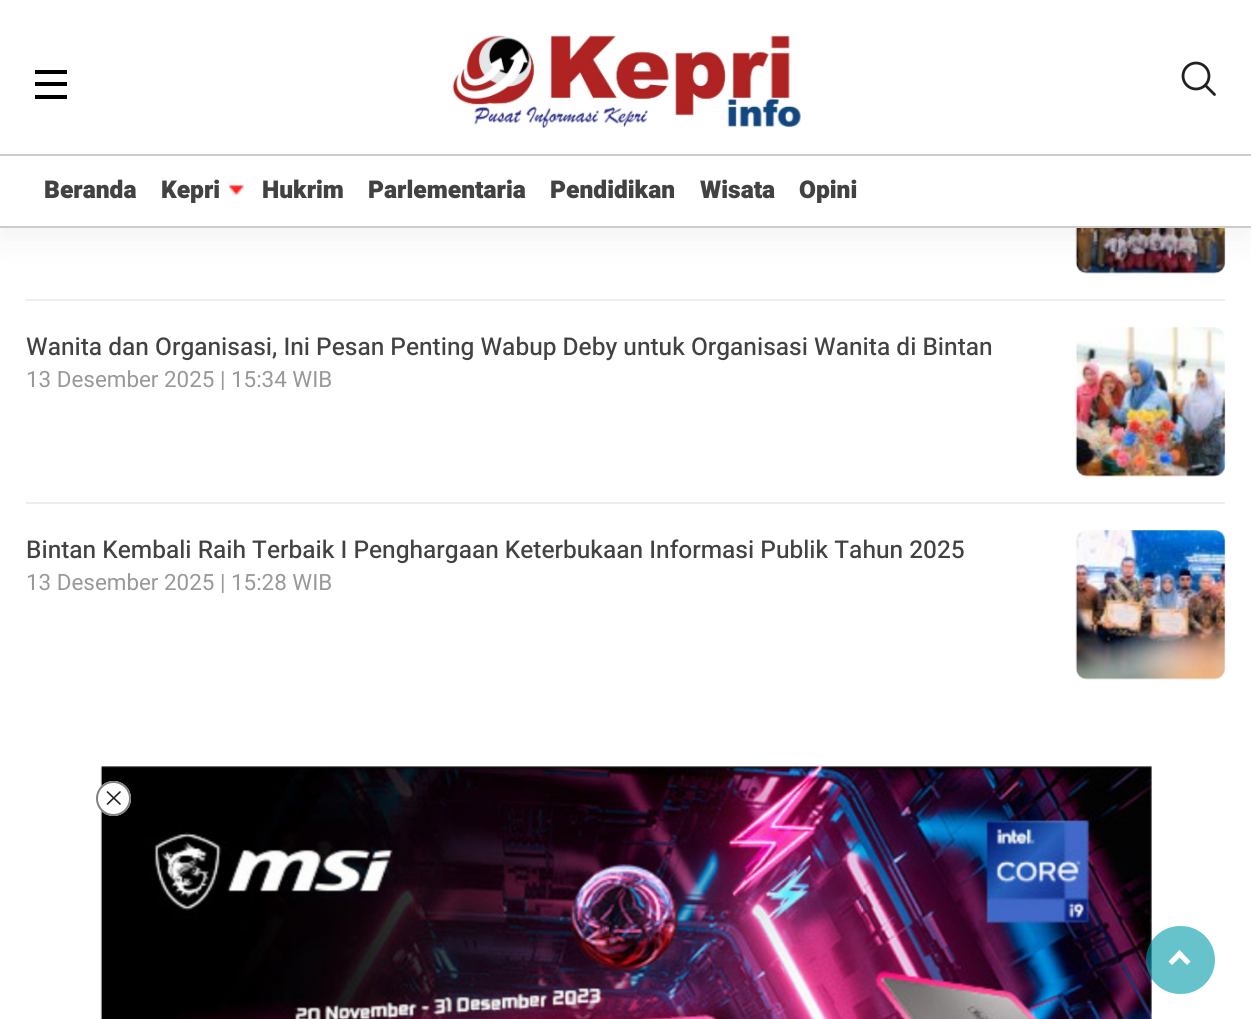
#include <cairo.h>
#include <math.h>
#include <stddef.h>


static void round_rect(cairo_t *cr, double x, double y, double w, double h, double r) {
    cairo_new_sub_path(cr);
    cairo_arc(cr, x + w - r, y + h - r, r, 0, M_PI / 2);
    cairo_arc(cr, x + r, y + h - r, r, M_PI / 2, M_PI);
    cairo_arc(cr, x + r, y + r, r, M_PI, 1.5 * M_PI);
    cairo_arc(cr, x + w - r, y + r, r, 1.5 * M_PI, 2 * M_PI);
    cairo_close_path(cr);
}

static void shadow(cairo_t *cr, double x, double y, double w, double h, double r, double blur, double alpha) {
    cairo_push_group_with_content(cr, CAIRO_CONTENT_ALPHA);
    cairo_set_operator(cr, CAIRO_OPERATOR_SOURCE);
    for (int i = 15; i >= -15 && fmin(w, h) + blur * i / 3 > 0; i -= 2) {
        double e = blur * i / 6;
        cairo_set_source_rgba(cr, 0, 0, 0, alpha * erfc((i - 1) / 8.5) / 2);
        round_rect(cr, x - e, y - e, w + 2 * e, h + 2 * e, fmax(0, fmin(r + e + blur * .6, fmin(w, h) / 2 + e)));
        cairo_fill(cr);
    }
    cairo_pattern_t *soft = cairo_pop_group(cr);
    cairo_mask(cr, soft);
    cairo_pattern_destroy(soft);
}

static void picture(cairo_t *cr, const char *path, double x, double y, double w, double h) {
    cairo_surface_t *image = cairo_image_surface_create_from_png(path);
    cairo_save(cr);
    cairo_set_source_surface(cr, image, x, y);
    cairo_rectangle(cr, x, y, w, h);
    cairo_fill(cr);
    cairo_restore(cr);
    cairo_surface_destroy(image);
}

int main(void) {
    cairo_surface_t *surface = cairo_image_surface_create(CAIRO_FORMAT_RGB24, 1251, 1019);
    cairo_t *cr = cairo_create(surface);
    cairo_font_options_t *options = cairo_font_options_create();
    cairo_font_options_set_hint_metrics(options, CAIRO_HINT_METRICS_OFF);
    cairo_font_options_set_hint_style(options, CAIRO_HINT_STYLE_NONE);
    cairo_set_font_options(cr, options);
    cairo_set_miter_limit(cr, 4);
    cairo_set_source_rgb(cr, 1, 1, 1);
    cairo_paint(cr);
    picture(cr, "img3.png", 1075, 228, 151, 46);
    cairo_set_source_rgb(cr, 0, 0, 0);
    shadow(cr, 0, 11, 1251, 227, 0, 17, 0.05);
    cairo_set_source_rgb(cr, 1, 1, 1);
    cairo_rectangle(cr, 0, 0, 1251, 226);
    cairo_fill(cr);
    cairo_set_source_rgb(cr, 0, 0, 0);
    cairo_rectangle(cr, 35, 70, 32, 4);
    cairo_fill(cr);
    cairo_rectangle(cr, 35, 82, 32, 4);
    cairo_fill(cr);
    cairo_rectangle(cr, 35, 95, 32, 4);
    cairo_fill(cr);
    picture(cr, "img1.png", 452, 35, 349, 94);
    cairo_arc(cr, 1196, 76, 13, 0, 2 * M_PI);
    cairo_set_source_rgb(cr, 0.129, 0.129, 0.129);
    cairo_set_line_width(cr, 2.8);
    cairo_stroke(cr);
    cairo_new_path(cr);
    cairo_move_to(cr, 1214.5, 94.5);
    cairo_line_to(cr, 1205.5, 85.5);
    cairo_set_line_cap(cr, CAIRO_LINE_CAP_ROUND);
    cairo_set_line_join(cr, CAIRO_LINE_JOIN_ROUND);
    cairo_stroke(cr);
    cairo_set_source_rgb(cr, 0.8, 0.8, 0.8);
    cairo_rectangle(cr, 0, 154, 1251, 2);
    cairo_fill(cr);
    cairo_rectangle(cr, 0, 226, 1251, 2);
    cairo_fill(cr);
    cairo_select_font_face(cr, "Heebo Black", CAIRO_FONT_SLANT_NORMAL, CAIRO_FONT_WEIGHT_NORMAL);
    cairo_set_font_size(cr, 24.5);
    cairo_set_source_rgb(cr, 0.259, 0.259, 0.259);
    cairo_move_to(cr, 44, 198);
    cairo_show_text(cr, "Beranda");
    cairo_move_to(cr, 161, 198);
    cairo_show_text(cr, "Kepri");
    picture(cr, "img2.png", 228, 185, 16, 10);
    cairo_move_to(cr, 262, 198);
    cairo_show_text(cr, "Hukrim");
    cairo_move_to(cr, 368, 198);
    cairo_show_text(cr, "Parlementaria");
    cairo_move_to(cr, 550, 198);
    cairo_show_text(cr, "Pendidikan");
    cairo_move_to(cr, 700, 198);
    cairo_show_text(cr, "Wisata");
    cairo_move_to(cr, 799, 198);
    cairo_show_text(cr, "Opini");
    cairo_set_source_rgb(cr, 0.933, 0.933, 0.933);
    cairo_rectangle(cr, 26, 299, 1199, 2);
    cairo_fill(cr);
    cairo_rectangle(cr, 26, 502, 1199, 2);
    cairo_fill(cr);
    cairo_select_font_face(cr, "Heebo Medium", CAIRO_FONT_SLANT_NORMAL, CAIRO_FONT_WEIGHT_NORMAL);
    cairo_set_source_rgb(cr, 0.259, 0.259, 0.259);
    cairo_move_to(cr, 26, 355);
    cairo_show_text(cr, "Wanita dan Organisasi, Ini Pesan Penting Wabup Deby untuk Organisasi Wanita di Bintan");
    picture(cr, "img4.png", 1075, 327, 151, 150);
    cairo_select_font_face(cr, "Heebo", CAIRO_FONT_SLANT_NORMAL, CAIRO_FONT_WEIGHT_NORMAL);
    cairo_set_font_size(cr, 22.4);
    cairo_set_source_rgb(cr, 0.6, 0.6, 0.6);
    cairo_move_to(cr, 26, 387);
    cairo_show_text(cr, "13 Desember 2025 | 15:34 WIB");
    cairo_select_font_face(cr, "Heebo Medium", CAIRO_FONT_SLANT_NORMAL, CAIRO_FONT_WEIGHT_NORMAL);
    cairo_set_font_size(cr, 24.5);
    cairo_set_source_rgb(cr, 0.259, 0.259, 0.259);
    cairo_move_to(cr, 26, 558);
    cairo_show_text(cr, "Bintan Kembali Raih Terbaik I Penghargaan Keterbukaan Informasi Publik Tahun 2025");
    picture(cr, "img5.png", 1075, 530, 151, 150);
    cairo_select_font_face(cr, "Heebo", CAIRO_FONT_SLANT_NORMAL, CAIRO_FONT_WEIGHT_NORMAL);
    cairo_set_font_size(cr, 22.4);
    cairo_set_source_rgb(cr, 0.6, 0.6, 0.6);
    cairo_move_to(cr, 26, 590);
    cairo_show_text(cr, "13 Desember 2025 | 15:28 WIB");
    picture(cr, "img6.png", 100, 766, 1052, 253);
    cairo_set_source_rgb(cr, 1, 1, 1);
    cairo_arc(cr, 113.5, 798.5, 17.5, 0, 2 * M_PI);
    cairo_fill(cr);
    cairo_new_path(cr);
    cairo_move_to(cr, 120, 792);
    cairo_line_to(cr, 107.5, 804);
    cairo_move_to(cr, 107.5, 792);
    cairo_line_to(cr, 120, 804);
    cairo_set_source_rgb(cr, 0.129, 0.129, 0.129);
    cairo_set_line_width(cr, 1.6);
    cairo_stroke(cr);
    cairo_arc(cr, 113.5, 798.5, 16.5, 0, 2 * M_PI);
    cairo_set_source_rgb(cr, 0.502, 0.502, 0.502);
    cairo_set_line_width(cr, 2);
    cairo_set_line_cap(cr, CAIRO_LINE_CAP_BUTT);
    cairo_set_line_join(cr, CAIRO_LINE_JOIN_MITER);
    cairo_stroke(cr);
    cairo_set_source_rgba(cr, 0, 0.608, 0.663, 0.6);
    round_rect(cr, 1146, 926, 69, 68, 34);
    cairo_fill(cr);
    cairo_set_source_rgb(cr, 1, 1, 1);
    cairo_new_path(cr);
    cairo_move_to(cr, 1172, 965);
    cairo_line_to(cr, 1168.5, 961.5);
    cairo_line_to(cr, 1179.5, 950);
    cairo_line_to(cr, 1183.5, 954);
    cairo_close_path(cr);
    cairo_fill(cr);
    cairo_new_path(cr);
    cairo_move_to(cr, 1187, 965);
    cairo_line_to(cr, 1176, 954);
    cairo_line_to(cr, 1179.5, 950);
    cairo_line_to(cr, 1190.5, 961.5);
    cairo_close_path(cr);
    cairo_fill(cr);
    cairo_surface_write_to_png(surface, "page.png");
    cairo_font_options_destroy(options);
    cairo_destroy(cr);
    cairo_surface_destroy(surface);
    return 0;
}
